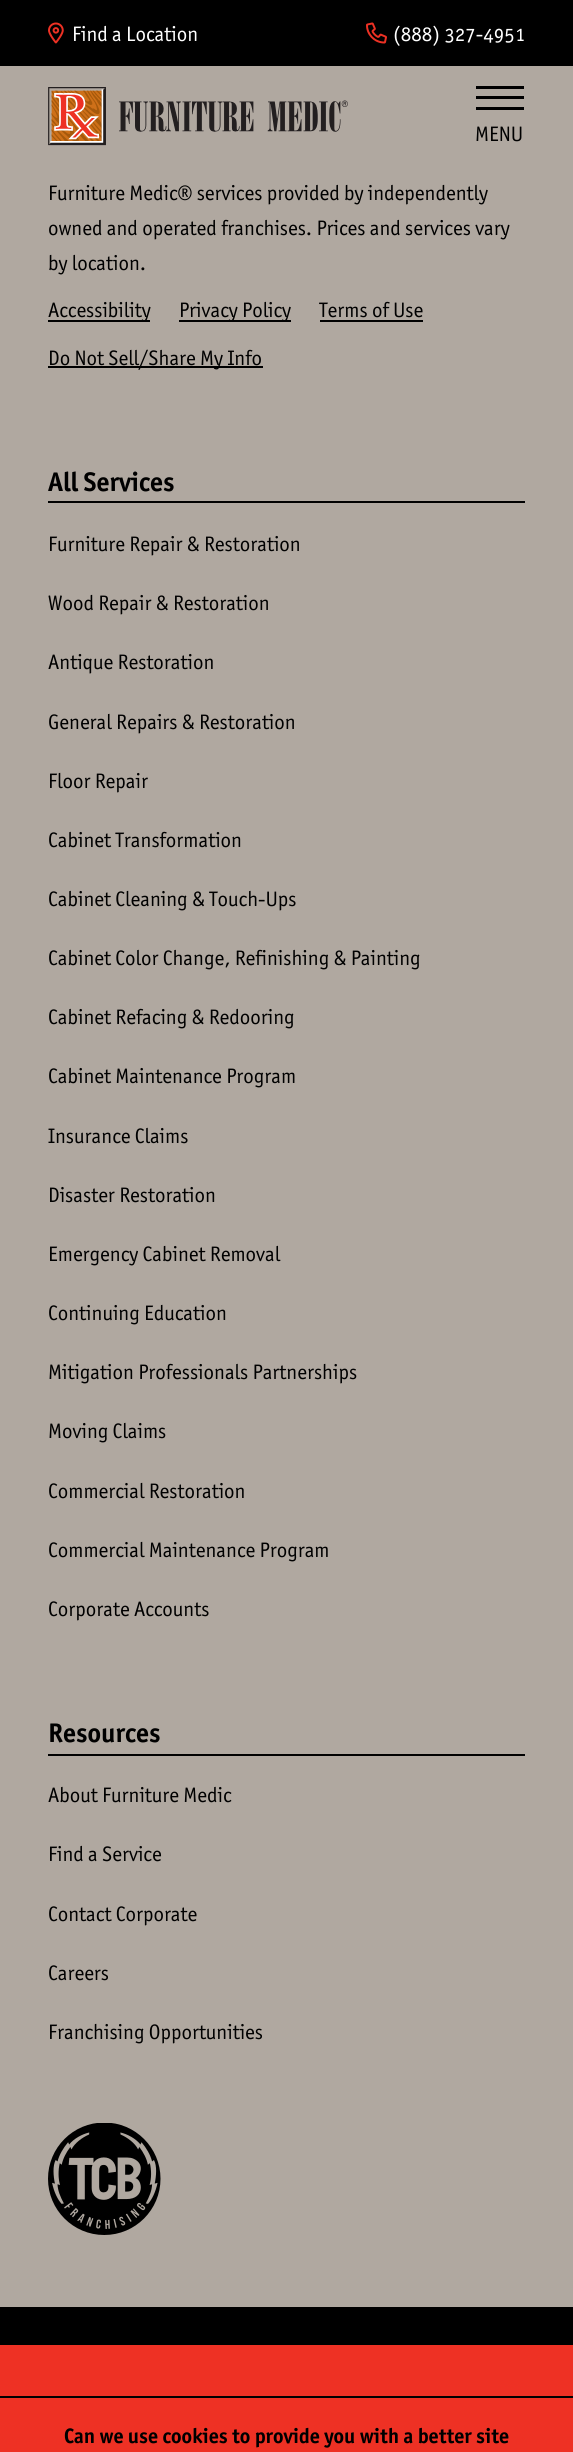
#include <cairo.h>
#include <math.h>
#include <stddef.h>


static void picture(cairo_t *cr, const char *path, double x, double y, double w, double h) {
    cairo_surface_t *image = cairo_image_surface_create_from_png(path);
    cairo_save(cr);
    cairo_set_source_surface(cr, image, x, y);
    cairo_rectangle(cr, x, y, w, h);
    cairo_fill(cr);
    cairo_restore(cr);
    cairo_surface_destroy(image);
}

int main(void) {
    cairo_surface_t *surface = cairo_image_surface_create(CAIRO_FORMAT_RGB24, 573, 2452);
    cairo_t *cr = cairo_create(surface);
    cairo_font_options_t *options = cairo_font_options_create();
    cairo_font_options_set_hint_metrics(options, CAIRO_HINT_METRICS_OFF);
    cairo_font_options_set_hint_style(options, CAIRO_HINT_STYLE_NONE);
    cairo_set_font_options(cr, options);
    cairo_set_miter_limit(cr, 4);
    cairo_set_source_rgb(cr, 0.69, 0.659, 0.627);
    cairo_paint(cr);
    cairo_set_source_rgb(cr, 0, 0, 0);
    cairo_rectangle(cr, 0, 0, 573, 66);
    cairo_fill(cr);
    picture(cr, "img1.png", 48, 22, 16, 22);
    cairo_select_font_face(cr, "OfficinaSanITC", CAIRO_FONT_SLANT_NORMAL, CAIRO_FONT_WEIGHT_NORMAL);
    cairo_set_font_size(cr, 21);
    cairo_set_source_rgb(cr, 1, 1, 1);
    cairo_move_to(cr, 72, 41);
    cairo_show_text(cr, "Find a Location");
    picture(cr, "img2.png", 366, 22, 21, 22);
    cairo_move_to(cr, 393, 41);
    cairo_show_text(cr, "(888) 327-4951");
    picture(cr, "img3.png", 48, 87, 300, 59);
    cairo_set_source_rgb(cr, 0, 0, 0);
    cairo_rectangle(cr, 476, 86, 48, 3);
    cairo_fill(cr);
    cairo_rectangle(cr, 476, 96, 48, 3);
    cairo_fill(cr);
    cairo_rectangle(cr, 476, 107, 48, 3);
    cairo_fill(cr);
    cairo_move_to(cr, 475, 141);
    cairo_show_text(cr, "MENU");
    cairo_move_to(cr, 48, 200);
    cairo_show_text(cr, "Furniture Medic® services provided by independently");
    cairo_move_to(cr, 48, 235);
    cairo_show_text(cr, "owned and operated franchises. Prices and services vary");
    cairo_move_to(cr, 48, 270);
    cairo_show_text(cr, "by location.");
    cairo_rectangle(cr, 48, 320, 102, 2);
    cairo_fill(cr);
    cairo_move_to(cr, 48, 317);
    cairo_show_text(cr, "Accessibility");
    cairo_rectangle(cr, 179, 320, 112, 2);
    cairo_fill(cr);
    cairo_move_to(cr, 179, 317);
    cairo_show_text(cr, "Privacy Policy");
    cairo_move_to(cr, 319, 317);
    cairo_show_text(cr, "Terms of Use");
    cairo_rectangle(cr, 320, 320, 103, 2);
    cairo_fill(cr);
    cairo_rectangle(cr, 48, 366, 215, 2);
    cairo_fill(cr);
    cairo_move_to(cr, 48, 365);
    cairo_show_text(cr, "Do Not Sell/Share My Info");
    cairo_rectangle(cr, 48, 501, 477, 2);
    cairo_fill(cr);
    cairo_select_font_face(cr, "OfficinaSanITC", CAIRO_FONT_SLANT_NORMAL, CAIRO_FONT_WEIGHT_BOLD);
    cairo_set_font_size(cr, 27);
    cairo_move_to(cr, 48, 491);
    cairo_show_text(cr, "All Services");
    cairo_select_font_face(cr, "OfficinaSanITC", CAIRO_FONT_SLANT_NORMAL, CAIRO_FONT_WEIGHT_NORMAL);
    cairo_set_font_size(cr, 21);
    cairo_move_to(cr, 48, 551);
    cairo_show_text(cr, "Furniture Repair & Restoration");
    cairo_move_to(cr, 48, 610);
    cairo_show_text(cr, "Wood Repair & Restoration");
    cairo_move_to(cr, 48, 669);
    cairo_show_text(cr, "Antique Restoration");
    cairo_move_to(cr, 48, 729);
    cairo_show_text(cr, "General Repairs & Restoration");
    cairo_move_to(cr, 48, 788);
    cairo_show_text(cr, "Floor Repair");
    cairo_move_to(cr, 48, 847);
    cairo_show_text(cr, "Cabinet Transformation");
    cairo_move_to(cr, 48, 906);
    cairo_show_text(cr, "Cabinet Cleaning & Touch-Ups");
    cairo_move_to(cr, 48, 965);
    cairo_show_text(cr, "Cabinet Color Change, Refinishing & Painting");
    cairo_move_to(cr, 48, 1024);
    cairo_show_text(cr, "Cabinet Refacing & Redooring");
    cairo_move_to(cr, 48, 1083);
    cairo_show_text(cr, "Cabinet Maintenance Program");
    cairo_move_to(cr, 48, 1143);
    cairo_show_text(cr, "Insurance Claims");
    cairo_move_to(cr, 48, 1202);
    cairo_show_text(cr, "Disaster Restoration");
    cairo_move_to(cr, 48, 1261);
    cairo_show_text(cr, "Emergency Cabinet Removal");
    cairo_move_to(cr, 48, 1320);
    cairo_show_text(cr, "Continuing Education");
    cairo_move_to(cr, 48, 1379);
    cairo_show_text(cr, "Mitigation Professionals Partnerships");
    cairo_move_to(cr, 48, 1438);
    cairo_show_text(cr, "Moving Claims");
    cairo_move_to(cr, 48, 1498);
    cairo_show_text(cr, "Commercial Restoration");
    cairo_move_to(cr, 48, 1557);
    cairo_show_text(cr, "Commercial Maintenance Program");
    cairo_move_to(cr, 48, 1616);
    cairo_show_text(cr, "Corporate Accounts");
    cairo_rectangle(cr, 48, 1754, 477, 2);
    cairo_fill(cr);
    cairo_select_font_face(cr, "OfficinaSanITC", CAIRO_FONT_SLANT_NORMAL, CAIRO_FONT_WEIGHT_BOLD);
    cairo_set_font_size(cr, 27);
    cairo_move_to(cr, 48, 1742);
    cairo_show_text(cr, "Resources");
    cairo_select_font_face(cr, "OfficinaSanITC", CAIRO_FONT_SLANT_NORMAL, CAIRO_FONT_WEIGHT_NORMAL);
    cairo_set_font_size(cr, 21);
    cairo_move_to(cr, 48, 1802);
    cairo_show_text(cr, "About Furniture Medic");
    cairo_move_to(cr, 48, 1861);
    cairo_show_text(cr, "Find a Service");
    cairo_move_to(cr, 48, 1921);
    cairo_show_text(cr, "Contact Corporate");
    cairo_move_to(cr, 48, 1980);
    cairo_show_text(cr, "Careers");
    cairo_move_to(cr, 48, 2039);
    cairo_show_text(cr, "Franchising Opportunities");
    picture(cr, "img4.png", 48, 2123, 113, 112);
    cairo_rectangle(cr, 0, 2307, 573, 38);
    cairo_fill(cr);
    cairo_set_source_rgb(cr, 0.933, 0.192, 0.141);
    cairo_rectangle(cr, 0, 2345, 573, 51);
    cairo_fill(cr);
    cairo_rectangle(cr, 0, 2398, 573, 54);
    cairo_fill(cr);
    cairo_set_source_rgb(cr, 0, 0, 0);
    cairo_rectangle(cr, 0, 2396, 573, 2);
    cairo_fill(cr);
    cairo_select_font_face(cr, "OfficinaSanITC", CAIRO_FONT_SLANT_NORMAL, CAIRO_FONT_WEIGHT_BOLD);
    cairo_move_to(cr, 64, 2443);
    cairo_show_text(cr, "Can we use cookies to provide you with a better site");
    cairo_surface_write_to_png(surface, "page.png");
    cairo_font_options_destroy(options);
    cairo_destroy(cr);
    cairo_surface_destroy(surface);
    return 0;
}
